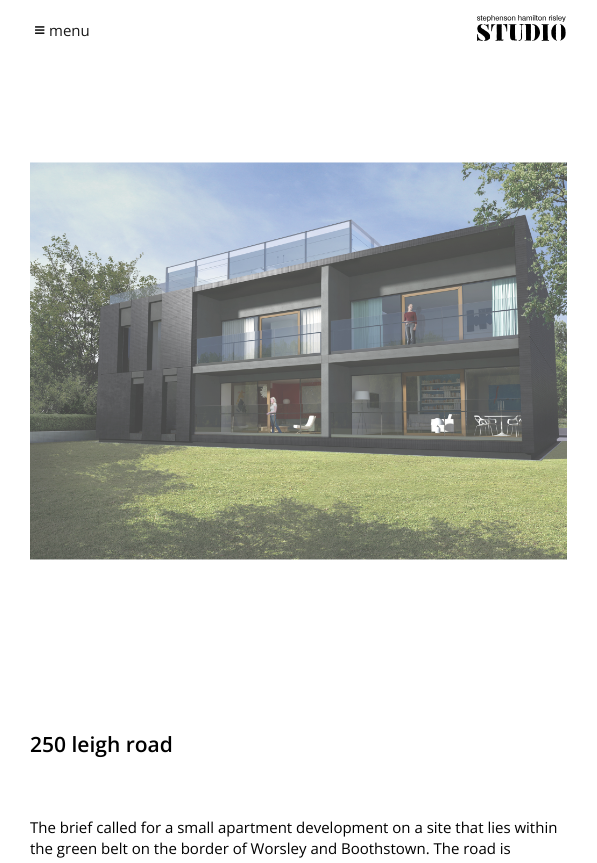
#include <cairo.h>
#include <math.h>
#include <stddef.h>


static void picture(cairo_t *cr, const char *path, double x, double y, double w, double h) {
    cairo_surface_t *image = cairo_image_surface_create_from_png(path);
    cairo_save(cr);
    cairo_set_source_surface(cr, image, x, y);
    cairo_rectangle(cr, x, y, w, h);
    cairo_fill(cr);
    cairo_restore(cr);
    cairo_surface_destroy(image);
}

int main(void) {
    cairo_surface_t *surface = cairo_image_surface_create(CAIRO_FORMAT_RGB24, 597, 863);
    cairo_t *cr = cairo_create(surface);
    cairo_font_options_t *options = cairo_font_options_create();
    cairo_font_options_set_hint_metrics(options, CAIRO_HINT_METRICS_OFF);
    cairo_font_options_set_hint_style(options, CAIRO_HINT_STYLE_NONE);
    cairo_set_font_options(cr, options);
    cairo_set_miter_limit(cr, 4);
    cairo_set_source_rgb(cr, 1, 1, 1);
    cairo_paint(cr);
    picture(cr, "img1.png", 35, 26, 10, 8);
    cairo_select_font_face(cr, "Open Sans", CAIRO_FONT_SLANT_NORMAL, CAIRO_FONT_WEIGHT_NORMAL);
    cairo_set_font_size(cr, 15);
    cairo_set_source_rgb(cr, 0.094, 0.094, 0.094);
    cairo_move_to(cr, 49, 36);
    cairo_show_text(cr, "menu");
    picture(cr, "img2.png", 477, 15, 89, 26);
    picture(cr, "img3.png", 30, 162, 537, 398);
    cairo_select_font_face(cr, "Open Sans SemiBold", CAIRO_FONT_SLANT_NORMAL, CAIRO_FONT_WEIGHT_NORMAL);
    cairo_set_font_size(cr, 21);
    cairo_set_source_rgb(cr, 0, 0, 0);
    cairo_move_to(cr, 30, 752);
    cairo_show_text(cr, "250 leigh road");
    cairo_select_font_face(cr, "Open Sans", CAIRO_FONT_SLANT_NORMAL, CAIRO_FONT_WEIGHT_NORMAL);
    cairo_set_font_size(cr, 15);
    cairo_move_to(cr, 30, 833);
    cairo_show_text(cr, "The brief called for a small apartment development on a site that lies within");
    cairo_move_to(cr, 30, 854);
    cairo_show_text(cr, "the green belt on the border of Worsley and Boothstown. The road is");
    cairo_surface_write_to_png(surface, "page.png");
    cairo_font_options_destroy(options);
    cairo_destroy(cr);
    cairo_surface_destroy(surface);
    return 0;
}
